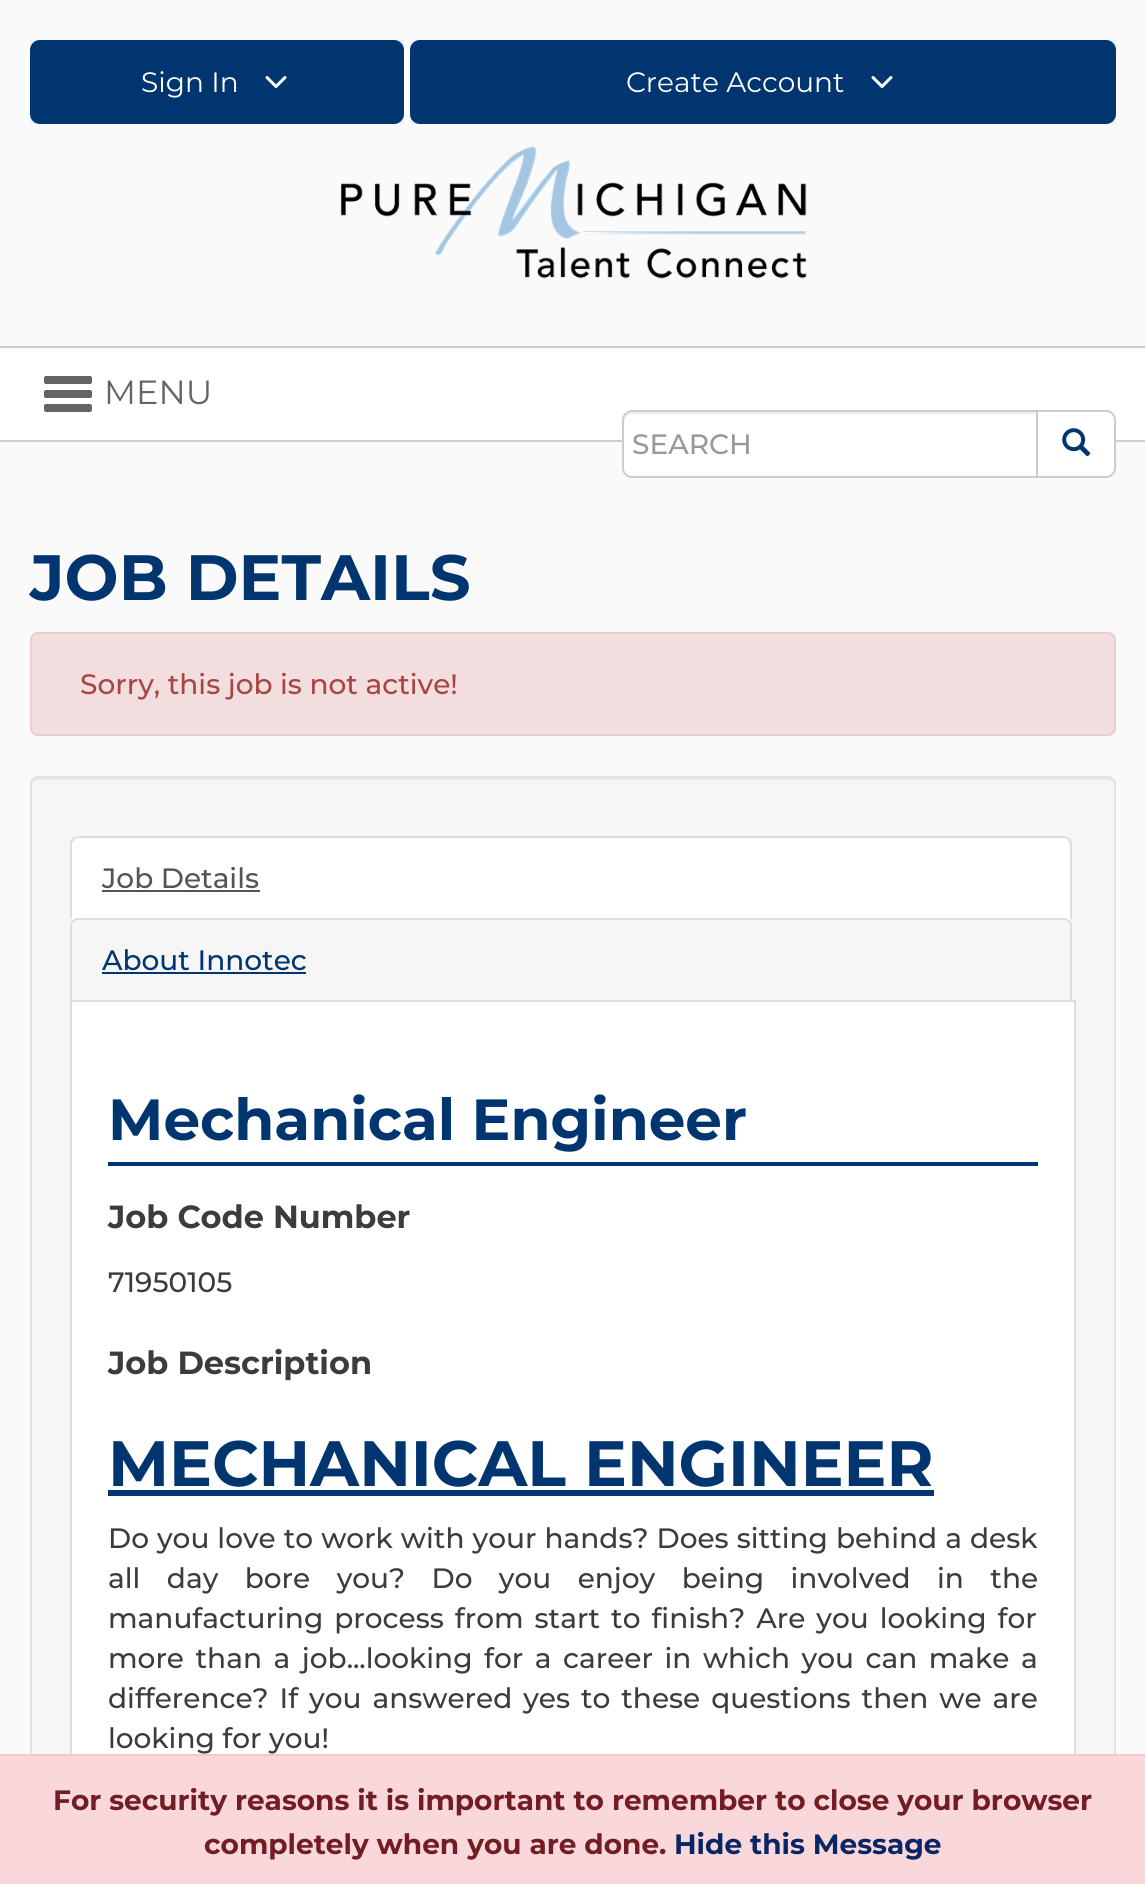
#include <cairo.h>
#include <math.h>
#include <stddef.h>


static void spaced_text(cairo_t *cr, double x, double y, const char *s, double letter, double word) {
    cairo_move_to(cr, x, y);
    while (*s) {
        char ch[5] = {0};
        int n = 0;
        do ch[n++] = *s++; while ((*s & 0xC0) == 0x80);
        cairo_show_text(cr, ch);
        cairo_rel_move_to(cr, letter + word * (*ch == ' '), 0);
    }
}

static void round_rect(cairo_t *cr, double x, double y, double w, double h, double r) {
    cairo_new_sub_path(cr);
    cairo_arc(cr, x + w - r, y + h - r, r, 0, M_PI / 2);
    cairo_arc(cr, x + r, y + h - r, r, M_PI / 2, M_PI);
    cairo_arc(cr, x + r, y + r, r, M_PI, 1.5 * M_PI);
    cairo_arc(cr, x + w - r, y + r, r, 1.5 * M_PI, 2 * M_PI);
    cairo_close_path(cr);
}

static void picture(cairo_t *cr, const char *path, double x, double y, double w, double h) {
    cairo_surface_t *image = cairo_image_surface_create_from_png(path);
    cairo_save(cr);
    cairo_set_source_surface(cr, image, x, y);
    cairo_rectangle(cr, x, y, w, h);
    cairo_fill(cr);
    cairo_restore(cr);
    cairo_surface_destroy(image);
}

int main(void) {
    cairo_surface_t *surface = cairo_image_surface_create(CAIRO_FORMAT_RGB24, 1145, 1884);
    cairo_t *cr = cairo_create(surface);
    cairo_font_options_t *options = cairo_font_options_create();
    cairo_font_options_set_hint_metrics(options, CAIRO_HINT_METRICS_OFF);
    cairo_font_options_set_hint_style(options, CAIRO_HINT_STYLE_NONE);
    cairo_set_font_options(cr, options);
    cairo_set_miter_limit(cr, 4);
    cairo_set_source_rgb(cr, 0.98, 0.98, 0.98);
    cairo_paint(cr);
    cairo_set_source_rgb(cr, 0.914, 0.953, 1);
    cairo_rectangle(cr, 30, 40, 374, 84);
    cairo_fill(cr);
    cairo_set_source_rgb(cr, 1, 1, 1);
    cairo_rectangle(cr, 404, 40, 6, 84);
    cairo_fill(cr);
    cairo_set_source_rgb(cr, 0, 0.208, 0.435);
    round_rect(cr, 31, 41, 372, 82, 9);
    cairo_fill_preserve(cr);
    cairo_stroke(cr);
    cairo_select_font_face(cr, "Montserrat", CAIRO_FONT_SLANT_NORMAL, CAIRO_FONT_WEIGHT_NORMAL);
    cairo_set_font_size(cr, 28);
    cairo_set_source_rgb(cr, 1, 1, 1);
    cairo_move_to(cr, 141, 92);
    cairo_show_text(cr, "Sign In");
    cairo_new_path(cr);
    cairo_move_to(cr, 267, 77.5);
    cairo_line_to(cr, 276, 86.5);
    cairo_line_to(cr, 285, 77.5);
    cairo_set_line_width(cr, 3);
    cairo_set_line_cap(cr, CAIRO_LINE_CAP_ROUND);
    cairo_set_line_join(cr, CAIRO_LINE_JOIN_ROUND);
    cairo_stroke(cr);
    cairo_set_source_rgb(cr, 0.914, 0.953, 1);
    cairo_rectangle(cr, 410, 40, 706, 84);
    cairo_fill(cr);
    cairo_set_source_rgb(cr, 0, 0.208, 0.435);
    round_rect(cr, 411, 41, 704, 82, 9);
    cairo_fill_preserve(cr);
    cairo_set_line_width(cr, 2);
    cairo_set_line_cap(cr, CAIRO_LINE_CAP_BUTT);
    cairo_set_line_join(cr, CAIRO_LINE_JOIN_MITER);
    cairo_stroke(cr);
    cairo_set_source_rgb(cr, 1, 1, 1);
    cairo_move_to(cr, 626, 92);
    cairo_show_text(cr, "Create Account");
    cairo_new_path(cr);
    cairo_move_to(cr, 873, 77.5);
    cairo_line_to(cr, 882, 86.5);
    cairo_line_to(cr, 891, 77.5);
    cairo_set_line_width(cr, 3);
    cairo_set_line_cap(cr, CAIRO_LINE_CAP_ROUND);
    cairo_set_line_join(cr, CAIRO_LINE_JOIN_ROUND);
    cairo_stroke(cr);
    cairo_rectangle(cr, 0, 348, 1145, 92);
    cairo_fill(cr);
    cairo_set_source_rgb(cr, 0.804, 0.804, 0.804);
    cairo_rectangle(cr, 0, 440, 1145, 2);
    cairo_fill(cr);
    cairo_set_source_rgb(cr, 1, 1, 1);
    cairo_new_path(cr);
    cairo_move_to(cr, 1037, 411);
    cairo_line_to(cr, 1106, 411);
    cairo_curve_to(cr, 1111, 411, 1115, 415, 1115, 420);
    cairo_line_to(cr, 1115, 468);
    cairo_curve_to(cr, 1115, 473, 1111, 477, 1106, 477);
    cairo_line_to(cr, 1037, 477);
    cairo_close_path(cr);
    cairo_fill_preserve(cr);
    cairo_set_source_rgb(cr, 0.8, 0.8, 0.8);
    cairo_set_line_width(cr, 2);
    cairo_set_line_cap(cr, CAIRO_LINE_CAP_BUTT);
    cairo_set_line_join(cr, CAIRO_LINE_JOIN_MITER);
    cairo_stroke(cr);
    cairo_set_source_rgb(cr, 1, 1, 1);
    cairo_new_path(cr);
    cairo_move_to(cr, 632, 410);
    cairo_line_to(cr, 1038, 410);
    cairo_line_to(cr, 1038, 478);
    cairo_line_to(cr, 632, 478);
    cairo_curve_to(cr, 626.5, 478, 622, 473.5, 622, 468);
    cairo_line_to(cr, 622, 420);
    cairo_curve_to(cr, 622, 414.5, 626.5, 410, 632, 410);
    cairo_close_path(cr);
    cairo_fill(cr);
    cairo_set_source_rgb(cr, 0.925, 0.925, 0.925);
    cairo_new_path(cr);
    cairo_move_to(cr, 632, 414);
    cairo_line_to(cr, 1036, 414);
    cairo_line_to(cr, 1036, 412);
    cairo_line_to(cr, 632, 412);
    cairo_curve_to(cr, 628, 412, 624, 416, 624, 420);
    cairo_line_to(cr, 624, 422);
    cairo_curve_to(cr, 624, 418, 628, 414, 632, 414);
    cairo_close_path(cr);
    cairo_fill(cr);
    cairo_new_path(cr);
    cairo_move_to(cr, 632, 411);
    cairo_line_to(cr, 1037, 411);
    cairo_line_to(cr, 1037, 477);
    cairo_line_to(cr, 632, 477);
    cairo_curve_to(cr, 627, 477, 623, 473, 623, 468);
    cairo_line_to(cr, 623, 420);
    cairo_curve_to(cr, 623, 415, 627, 411, 632, 411);
    cairo_close_path(cr);
    cairo_set_source_rgb(cr, 0.8, 0.8, 0.8);
    cairo_stroke(cr);
    cairo_select_font_face(cr, "Montserrat Medium", CAIRO_FONT_SLANT_NORMAL, CAIRO_FONT_WEIGHT_NORMAL);
    cairo_set_source_rgb(cr, 0.6, 0.6, 0.6);
    cairo_move_to(cr, 632, 454);
    cairo_show_text(cr, "SEARCH");
    picture(cr, "img1.png", 1062, 428, 29, 29);
    picture(cr, "img2.png", 340, 146, 467, 133);
    cairo_set_source_rgb(cr, 0.804, 0.804, 0.804);
    cairo_rectangle(cr, 0, 346, 1145, 2);
    cairo_fill(cr);
    cairo_set_source_rgb(cr, 0.392, 0.392, 0.392);
    round_rect(cr, 44, 376, 48, 8, 2);
    cairo_fill(cr);
    round_rect(cr, 44, 390, 48, 8, 2);
    cairo_fill(cr);
    round_rect(cr, 44, 404, 48, 8, 2);
    cairo_fill(cr);
    cairo_select_font_face(cr, "Montserrat", CAIRO_FONT_SLANT_NORMAL, CAIRO_FONT_WEIGHT_NORMAL);
    cairo_set_font_size(cr, 33.5);
    cairo_move_to(cr, 104, 404);
    cairo_show_text(cr, "MENU");
    cairo_select_font_face(cr, "Montserrat", CAIRO_FONT_SLANT_NORMAL, CAIRO_FONT_WEIGHT_BOLD);
    cairo_set_font_size(cr, 64);
    cairo_set_source_rgb(cr, 0, 0.208, 0.435);
    cairo_move_to(cr, 30, 600);
    cairo_show_text(cr, "JOB DETAILS");
    cairo_set_source_rgb(cr, 0.949, 0.871, 0.871);
    round_rect(cr, 31, 633, 1084, 102, 7);
    cairo_fill_preserve(cr);
    cairo_set_source_rgb(cr, 0.922, 0.8, 0.82);
    cairo_stroke(cr);
    cairo_select_font_face(cr, "Montserrat Medium", CAIRO_FONT_SLANT_NORMAL, CAIRO_FONT_WEIGHT_NORMAL);
    cairo_set_font_size(cr, 28);
    cairo_set_source_rgb(cr, 0.663, 0.267, 0.259);
    cairo_move_to(cr, 80, 694);
    cairo_show_text(cr, "Sorry, this job is not active!");
    cairo_set_source_rgb(cr, 0.961, 0.961, 0.961);
    round_rect(cr, 30, 776, 1086, 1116, 8);
    cairo_fill(cr);
    cairo_set_source_rgb(cr, 0.914, 0.914, 0.914);
    cairo_new_path(cr);
    cairo_move_to(cr, 38, 780);
    cairo_line_to(cr, 1108, 780);
    cairo_curve_to(cr, 1111, 780, 1114, 783, 1114, 786);
    cairo_line_to(cr, 1114, 784);
    cairo_curve_to(cr, 1114, 781, 1111, 778, 1108, 778);
    cairo_line_to(cr, 38, 778);
    cairo_curve_to(cr, 35, 778, 32, 781, 32, 784);
    cairo_line_to(cr, 32, 786);
    cairo_curve_to(cr, 32, 783, 35, 780, 38, 780);
    cairo_close_path(cr);
    cairo_fill(cr);
    round_rect(cr, 31, 777, 1084, 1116, 7);
    cairo_set_source_rgb(cr, 0.89, 0.89, 0.89);
    cairo_stroke(cr);
    cairo_set_source_rgb(cr, 0.867, 0.867, 0.867);
    cairo_rectangle(cr, 1072, 1000, 4, 2);
    cairo_fill(cr);
    cairo_set_source_rgb(cr, 1, 1, 1);
    cairo_new_path(cr);
    cairo_move_to(cr, 78, 836);
    cairo_line_to(cr, 1064, 836);
    cairo_curve_to(cr, 1068.5, 836, 1072, 839.5, 1072, 844);
    cairo_line_to(cr, 1072, 920);
    cairo_line_to(cr, 70, 920);
    cairo_line_to(cr, 70, 844);
    cairo_curve_to(cr, 70, 839.5, 73.5, 836, 78, 836);
    cairo_close_path(cr);
    cairo_fill(cr);
    cairo_set_source_rgb(cr, 0.867, 0.867, 0.867);
    cairo_new_path(cr);
    cairo_move_to(cr, 78, 836);
    cairo_curve_to(cr, 76, 836, 74, 837, 72, 838);
    cairo_line_to(cr, 74, 840);
    cairo_curve_to(cr, 75, 839, 76, 838, 78, 838);
    cairo_line_to(cr, 1064, 838);
    cairo_curve_to(cr, 1066, 838, 1067, 839, 1068, 840);
    cairo_line_to(cr, 1070, 838);
    cairo_curve_to(cr, 1068, 837, 1066, 836, 1064, 836);
    cairo_close_path(cr);
    cairo_fill(cr);
    cairo_new_path(cr);
    cairo_move_to(cr, 1072, 920);
    cairo_line_to(cr, 1072, 844);
    cairo_curve_to(cr, 1072, 842, 1071, 840, 1070, 838);
    cairo_line_to(cr, 1068, 840);
    cairo_line_to(cr, 1070, 843);
    cairo_line_to(cr, 1070, 918);
    cairo_close_path(cr);
    cairo_fill(cr);
    cairo_new_path(cr);
    cairo_move_to(cr, 70, 920);
    cairo_line_to(cr, 72, 918);
    cairo_line_to(cr, 72, 843);
    cairo_line_to(cr, 74, 840);
    cairo_line_to(cr, 72, 838);
    cairo_curve_to(cr, 71, 840, 70, 842, 70, 844);
    cairo_close_path(cr);
    cairo_fill(cr);
    cairo_set_source_rgb(cr, 0.333, 0.333, 0.333);
    cairo_move_to(cr, 102, 888);
    cairo_show_text(cr, "Job Details");
    cairo_rectangle(cr, 102, 890, 158, 2);
    cairo_fill(cr);
    cairo_new_path(cr);
    cairo_move_to(cr, 78, 919);
    cairo_line_to(cr, 1064, 919);
    cairo_curve_to(cr, 1068, 919, 1071, 922, 1071, 926);
    cairo_line_to(cr, 1071, 1001);
    cairo_line_to(cr, 71, 1001);
    cairo_line_to(cr, 71, 926);
    cairo_curve_to(cr, 71, 922, 74, 919, 78, 919);
    cairo_close_path(cr);
    cairo_set_source_rgb(cr, 0.867, 0.867, 0.867);
    cairo_stroke(cr);
    cairo_set_source_rgb(cr, 0, 0.208, 0.435);
    cairo_move_to(cr, 102, 970);
    cairo_show_text(cr, "About Innotec");
    cairo_rectangle(cr, 102, 972, 204, 2);
    cairo_fill(cr);
    cairo_set_source_rgb(cr, 1, 1, 1);
    cairo_rectangle(cr, 72, 1002, 1002, 752);
    cairo_fill(cr);
    cairo_set_source_rgb(cr, 0.867, 0.867, 0.867);
    cairo_rectangle(cr, 1074, 1002, 2, 752);
    cairo_fill(cr);
    cairo_rectangle(cr, 70, 1002, 2, 752);
    cairo_fill(cr);
    cairo_set_source_rgb(cr, 0, 0.208, 0.435);
    cairo_rectangle(cr, 108, 1162, 930, 4);
    cairo_fill(cr);
    cairo_select_font_face(cr, "Montserrat", CAIRO_FONT_SLANT_NORMAL, CAIRO_FONT_WEIGHT_BOLD);
    cairo_set_font_size(cr, 58);
    cairo_move_to(cr, 108, 1140);
    cairo_show_text(cr, "Mechanical Engineer");
    cairo_set_font_size(cr, 32);
    cairo_set_source_rgb(cr, 0.235, 0.235, 0.235);
    cairo_move_to(cr, 108, 1228);
    cairo_show_text(cr, "Job Code Number");
    cairo_select_font_face(cr, "Montserrat Medium", CAIRO_FONT_SLANT_NORMAL, CAIRO_FONT_WEIGHT_NORMAL);
    cairo_set_font_size(cr, 28);
    cairo_move_to(cr, 108, 1292);
    cairo_show_text(cr, "71950105");
    cairo_select_font_face(cr, "Montserrat", CAIRO_FONT_SLANT_NORMAL, CAIRO_FONT_WEIGHT_BOLD);
    cairo_set_font_size(cr, 32);
    cairo_move_to(cr, 108, 1374);
    cairo_show_text(cr, "Job Description");
    cairo_set_font_size(cr, 64);
    cairo_set_source_rgb(cr, 0, 0.208, 0.435);
    cairo_move_to(cr, 108, 1486);
    cairo_show_text(cr, "MECHANICAL ENGINEER");
    cairo_rectangle(cr, 108, 1490, 826, 6);
    cairo_fill(cr);
    cairo_select_font_face(cr, "Montserrat Medium", CAIRO_FONT_SLANT_NORMAL, CAIRO_FONT_WEIGHT_NORMAL);
    cairo_set_font_size(cr, 28);
    cairo_set_source_rgb(cr, 0.235, 0.235, 0.235);
    spaced_text(cr, 108, 1548, "Do you love to work with your hands? Does sitting behind a desk", 0, 0.5);
    spaced_text(cr, 108, 1588, "all day bore you? Do you enjoy being involved in the", 0, 18.9);
    spaced_text(cr, 108, 1628, "manufacturing process from start to finish? Are you looking for", 0, 3.5);
    spaced_text(cr, 108, 1668, "more than a job...looking for a career in which you can make a", 0, 4);
    spaced_text(cr, 108, 1708, "difference? If you answered yes to these questions then we are", 0, 3.4);
    cairo_move_to(cr, 108, 1748);
    cairo_show_text(cr, "looking for you!");
    cairo_set_source_rgb(cr, 0.973, 0.843, 0.855);
    cairo_rectangle(cr, 0, 1756, 1145, 128);
    cairo_fill(cr);
    cairo_set_source_rgb(cr, 0.961, 0.776, 0.796);
    cairo_rectangle(cr, 0, 1754, 1145, 2);
    cairo_fill(cr);
    cairo_select_font_face(cr, "Montserrat", CAIRO_FONT_SLANT_NORMAL, CAIRO_FONT_WEIGHT_BOLD);
    cairo_set_source_rgb(cr, 0.447, 0.11, 0.141);
    cairo_move_to(cr, 53, 1810);
    cairo_show_text(cr, "For security reasons it is important to remember to close your browser");
    cairo_move_to(cr, 204, 1854);
    cairo_show_text(cr, "completely when you are done.");
    cairo_set_source_rgb(cr, 0.039, 0.149, 0.392);
    cairo_move_to(cr, 674, 1854);
    cairo_show_text(cr, "Hide this Message");
    cairo_surface_write_to_png(surface, "page.png");
    cairo_font_options_destroy(options);
    cairo_destroy(cr);
    cairo_surface_destroy(surface);
    return 0;
}
